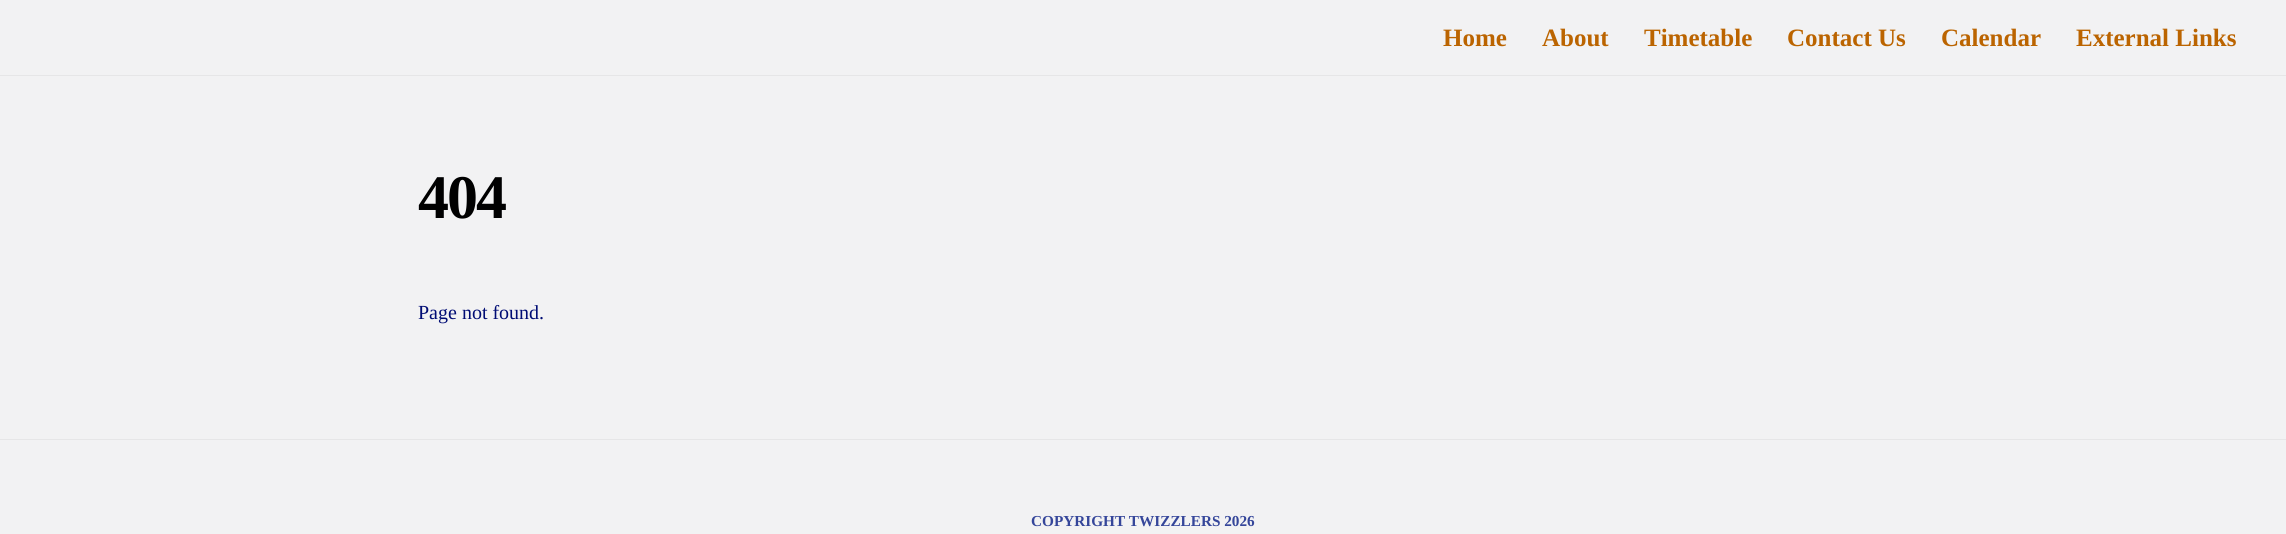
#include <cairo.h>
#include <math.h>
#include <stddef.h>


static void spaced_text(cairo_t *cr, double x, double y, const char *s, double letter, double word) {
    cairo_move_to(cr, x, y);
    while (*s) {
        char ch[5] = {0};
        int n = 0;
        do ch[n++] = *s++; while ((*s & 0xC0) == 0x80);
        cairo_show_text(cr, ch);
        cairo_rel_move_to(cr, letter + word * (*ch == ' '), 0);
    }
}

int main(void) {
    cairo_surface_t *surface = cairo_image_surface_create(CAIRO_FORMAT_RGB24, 2286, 534);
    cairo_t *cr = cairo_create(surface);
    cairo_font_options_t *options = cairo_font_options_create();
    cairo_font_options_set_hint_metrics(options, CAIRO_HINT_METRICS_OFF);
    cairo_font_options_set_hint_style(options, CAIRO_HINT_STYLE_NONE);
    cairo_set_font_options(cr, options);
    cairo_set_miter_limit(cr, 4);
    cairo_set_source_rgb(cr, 0.949, 0.949, 0.953);
    cairo_paint(cr);
    cairo_set_source_rgb(cr, 0.902, 0.902, 0.906);
    cairo_rectangle(cr, 0, 75, 2286, 1);
    cairo_fill(cr);
    cairo_select_font_face(cr, "Liberation Serif", CAIRO_FONT_SLANT_NORMAL, CAIRO_FONT_WEIGHT_BOLD);
    cairo_set_font_size(cr, 25);
    cairo_set_source_rgb(cr, 0.733, 0.392, 0);
    cairo_move_to(cr, 1443, 46);
    cairo_show_text(cr, "Home");
    cairo_move_to(cr, 1542, 46);
    cairo_show_text(cr, "About");
    cairo_move_to(cr, 1644, 46);
    cairo_show_text(cr, "Timetable");
    cairo_move_to(cr, 1787, 46);
    cairo_show_text(cr, "Contact Us");
    cairo_move_to(cr, 1941, 46);
    cairo_show_text(cr, "Calendar");
    cairo_move_to(cr, 2076, 46);
    cairo_show_text(cr, "External Links");
    cairo_set_font_size(cr, 62);
    cairo_set_source_rgb(cr, 0, 0, 0);
    spaced_text(cr, 418, 218, "404", -2, 0);
    cairo_select_font_face(cr, "Liberation Serif", CAIRO_FONT_SLANT_NORMAL, CAIRO_FONT_WEIGHT_NORMAL);
    cairo_set_font_size(cr, 20);
    cairo_set_source_rgb(cr, 0, 0.047, 0.455);
    cairo_move_to(cr, 418, 319);
    cairo_show_text(cr, "Page not found.");
    cairo_set_source_rgb(cr, 0.902, 0.902, 0.906);
    cairo_rectangle(cr, 0, 439, 2286, 1);
    cairo_fill(cr);
    cairo_select_font_face(cr, "Liberation Serif", CAIRO_FONT_SLANT_NORMAL, CAIRO_FONT_WEIGHT_BOLD);
    cairo_set_font_size(cr, 15.25);
    cairo_set_source_rgb(cr, 0.208, 0.275, 0.604);
    cairo_move_to(cr, 1031, 526);
    cairo_show_text(cr, "COPYRIGHT TWIZZLERS 2026");
    cairo_surface_write_to_png(surface, "page.png");
    cairo_font_options_destroy(options);
    cairo_destroy(cr);
    cairo_surface_destroy(surface);
    return 0;
}
